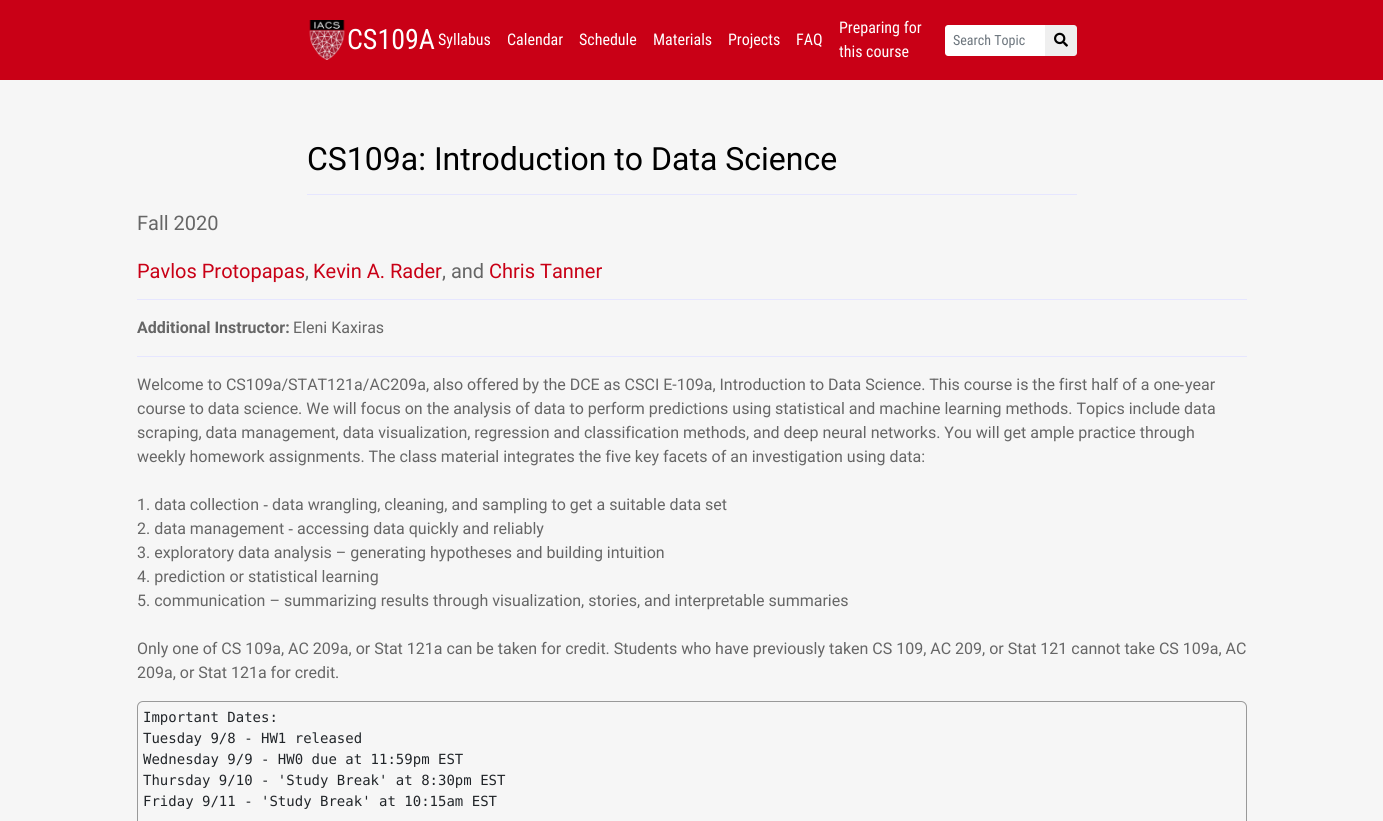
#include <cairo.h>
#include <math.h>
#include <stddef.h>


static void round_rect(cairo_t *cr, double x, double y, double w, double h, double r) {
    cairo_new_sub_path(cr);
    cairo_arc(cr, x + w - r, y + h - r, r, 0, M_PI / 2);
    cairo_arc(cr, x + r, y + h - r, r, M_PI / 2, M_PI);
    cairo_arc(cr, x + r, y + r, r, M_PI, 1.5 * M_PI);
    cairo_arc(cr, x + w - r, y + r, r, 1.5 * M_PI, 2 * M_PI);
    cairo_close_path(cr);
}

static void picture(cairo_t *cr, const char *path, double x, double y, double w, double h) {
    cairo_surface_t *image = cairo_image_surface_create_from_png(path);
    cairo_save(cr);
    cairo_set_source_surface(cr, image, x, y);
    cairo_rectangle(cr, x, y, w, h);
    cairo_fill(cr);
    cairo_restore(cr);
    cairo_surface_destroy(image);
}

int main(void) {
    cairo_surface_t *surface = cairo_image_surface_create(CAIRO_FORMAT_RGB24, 1383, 821);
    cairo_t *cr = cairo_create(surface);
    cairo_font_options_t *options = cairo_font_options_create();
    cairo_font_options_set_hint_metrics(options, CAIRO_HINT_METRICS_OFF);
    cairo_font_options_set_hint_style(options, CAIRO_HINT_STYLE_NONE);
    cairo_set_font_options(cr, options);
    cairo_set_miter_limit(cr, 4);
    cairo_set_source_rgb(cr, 0.961, 0.961, 0.961);
    cairo_paint(cr);
    cairo_set_source_rgb(cr, 0.788, 0, 0.086);
    cairo_rectangle(cr, 0, 0, 1383, 80);
    cairo_fill(cr);
    picture(cr, "img1.png", 309, 20, 36, 40);
    cairo_select_font_face(cr, "Roboto Condensed", CAIRO_FONT_SLANT_NORMAL, CAIRO_FONT_WEIGHT_NORMAL);
    cairo_set_font_size(cr, 28);
    cairo_set_source_rgb(cr, 1, 1, 1);
    cairo_move_to(cr, 347, 49);
    cairo_show_text(cr, "CS109A");
    cairo_set_font_size(cr, 16);
    cairo_move_to(cr, 438, 45);
    cairo_show_text(cr, "Syllabus");
    cairo_move_to(cr, 507, 45);
    cairo_show_text(cr, "Calendar");
    cairo_move_to(cr, 579, 45);
    cairo_show_text(cr, "Schedule");
    cairo_move_to(cr, 653, 45);
    cairo_show_text(cr, "Materials");
    cairo_move_to(cr, 728, 45);
    cairo_show_text(cr, "Projects");
    cairo_move_to(cr, 796, 45);
    cairo_show_text(cr, "FAQ");
    cairo_move_to(cr, 839, 33);
    cairo_show_text(cr, "Preparing for");
    cairo_move_to(cr, 839, 57);
    cairo_show_text(cr, "this course");
    cairo_new_path(cr);
    cairo_move_to(cr, 948, 25);
    cairo_line_to(cr, 1046, 25);
    cairo_line_to(cr, 1046, 56);
    cairo_line_to(cr, 948, 56);
    cairo_curve_to(cr, 946.5, 56, 945, 54.5, 945, 53);
    cairo_line_to(cr, 945, 28);
    cairo_curve_to(cr, 945, 26.5, 946.5, 25, 948, 25);
    cairo_close_path(cr);
    cairo_fill(cr);
    cairo_set_font_size(cr, 14);
    cairo_set_source_rgb(cr, 0.424, 0.459, 0.49);
    cairo_move_to(cr, 953, 45);
    cairo_show_text(cr, "Search Topic");
    cairo_set_source_rgb(cr, 0.937, 0.937, 0.937);
    cairo_new_path(cr);
    cairo_move_to(cr, 1045, 25);
    cairo_line_to(cr, 1074, 25);
    cairo_curve_to(cr, 1075.5, 25, 1077, 26.5, 1077, 28);
    cairo_line_to(cr, 1077, 53);
    cairo_curve_to(cr, 1077, 54.5, 1075.5, 56, 1074, 56);
    cairo_line_to(cr, 1045, 56);
    cairo_close_path(cr);
    cairo_fill(cr);
    picture(cr, "img2.png", 1054, 32, 14, 15);
    cairo_select_font_face(cr, "Roboto", CAIRO_FONT_SLANT_NORMAL, CAIRO_FONT_WEIGHT_NORMAL);
    cairo_set_font_size(cr, 32);
    cairo_set_source_rgb(cr, 0, 0, 0);
    cairo_move_to(cr, 307, 170);
    cairo_show_text(cr, "CS109a: Introduction to Data Science");
    cairo_set_source_rgb(cr, 0.902, 0.902, 1);
    cairo_rectangle(cr, 307, 194, 770, 1);
    cairo_fill(cr);
    cairo_set_font_size(cr, 20);
    cairo_set_source_rgb(cr, 0.4, 0.4, 0.4);
    cairo_move_to(cr, 137, 230);
    cairo_show_text(cr, "Fall 2020");
    cairo_set_source_rgb(cr, 0.788, 0, 0.086);
    cairo_move_to(cr, 137, 278);
    cairo_show_text(cr, "Pavlos Protopapas");
    cairo_set_source_rgb(cr, 0.4, 0.4, 0.4);
    cairo_move_to(cr, 305, 278);
    cairo_show_text(cr, ",");
    cairo_set_source_rgb(cr, 0.788, 0, 0.086);
    cairo_move_to(cr, 313, 278);
    cairo_show_text(cr, "Kevin A. Rader");
    cairo_set_source_rgb(cr, 0.4, 0.4, 0.4);
    cairo_move_to(cr, 442, 278);
    cairo_show_text(cr, ", and");
    cairo_set_source_rgb(cr, 0.788, 0, 0.086);
    cairo_move_to(cr, 489, 278);
    cairo_show_text(cr, "Chris Tanner");
    cairo_set_source_rgb(cr, 0.902, 0.902, 1);
    cairo_rectangle(cr, 137, 299, 1110, 1);
    cairo_fill(cr);
    cairo_select_font_face(cr, "Roboto", CAIRO_FONT_SLANT_NORMAL, CAIRO_FONT_WEIGHT_BOLD);
    cairo_set_font_size(cr, 16);
    cairo_set_source_rgb(cr, 0.4, 0.4, 0.4);
    cairo_move_to(cr, 137, 333);
    cairo_show_text(cr, "Additional Instructor:");
    cairo_select_font_face(cr, "Roboto", CAIRO_FONT_SLANT_NORMAL, CAIRO_FONT_WEIGHT_NORMAL);
    cairo_move_to(cr, 293, 333);
    cairo_show_text(cr, "Eleni Kaxiras");
    cairo_set_source_rgb(cr, 0.902, 0.902, 1);
    cairo_rectangle(cr, 137, 356, 1110, 1);
    cairo_fill(cr);
    cairo_set_source_rgb(cr, 0.4, 0.4, 0.4);
    cairo_move_to(cr, 137, 390);
    cairo_show_text(cr, "Welcome to CS109a/STAT121a/AC209a, also offered by the DCE as CSCI E-109a, Introduction to Data Science. This course is the first half of a one");
    cairo_select_font_face(cr, "Liberation Sans", CAIRO_FONT_SLANT_NORMAL, CAIRO_FONT_WEIGHT_NORMAL);
    cairo_move_to(cr, 1179, 390);
    cairo_show_text(cr, "‐");
    cairo_select_font_face(cr, "Roboto", CAIRO_FONT_SLANT_NORMAL, CAIRO_FONT_WEIGHT_NORMAL);
    cairo_move_to(cr, 1185, 390);
    cairo_show_text(cr, "year");
    cairo_move_to(cr, 137, 414);
    cairo_show_text(cr, "course to data science. We will focus on the analysis of data to perform predictions using statistical and machine learning methods. Topics include data");
    cairo_move_to(cr, 137, 438);
    cairo_show_text(cr, "scraping, data management, data visualization, regression and classification methods, and deep neural networks. You will get ample practice through");
    cairo_move_to(cr, 137, 462);
    cairo_show_text(cr, "weekly homework assignments. The class material integrates the five key facets of an investigation using data:");
    cairo_move_to(cr, 137, 510);
    cairo_show_text(cr, "1. data collection");
    cairo_select_font_face(cr, "Liberation Sans", CAIRO_FONT_SLANT_NORMAL, CAIRO_FONT_WEIGHT_NORMAL);
    cairo_move_to(cr, 263, 510);
    cairo_show_text(cr, "‐");
    cairo_select_font_face(cr, "Roboto", CAIRO_FONT_SLANT_NORMAL, CAIRO_FONT_WEIGHT_NORMAL);
    cairo_move_to(cr, 272, 510);
    cairo_show_text(cr, "data wrangling, cleaning, and sampling to get a suitable data set");
    cairo_move_to(cr, 137, 534);
    cairo_show_text(cr, "2. data management");
    cairo_select_font_face(cr, "Liberation Sans", CAIRO_FONT_SLANT_NORMAL, CAIRO_FONT_WEIGHT_NORMAL);
    cairo_move_to(cr, 288, 534);
    cairo_show_text(cr, "‐");
    cairo_select_font_face(cr, "Roboto", CAIRO_FONT_SLANT_NORMAL, CAIRO_FONT_WEIGHT_NORMAL);
    cairo_move_to(cr, 297, 534);
    cairo_show_text(cr, "accessing data quickly and reliably");
    cairo_move_to(cr, 137, 558);
    cairo_show_text(cr, "3. exploratory data analysis – generating hypotheses and building intuition");
    cairo_move_to(cr, 137, 582);
    cairo_show_text(cr, "4. prediction or statistical learning");
    cairo_move_to(cr, 137, 606);
    cairo_show_text(cr, "5. communication – summarizing results through visualization, stories, and interpretable summaries");
    cairo_move_to(cr, 137, 654);
    cairo_show_text(cr, "Only one of CS 109a, AC 209a, or Stat 121a can be taken for credit. Students who have previously taken CS 109, AC 209, or Stat 121 cannot take CS 109a, AC");
    cairo_move_to(cr, 137, 678);
    cairo_show_text(cr, "209a, or Stat 121a for credit.");
    round_rect(cr, 137.5, 701.5, 1109, 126, 5.5);
    cairo_set_source_rgb(cr, 0.6, 0.6, 0.6);
    cairo_set_line_width(cr, 1);
    cairo_stroke(cr);
    cairo_select_font_face(cr, "DejaVu Sans Mono", CAIRO_FONT_SLANT_NORMAL, CAIRO_FONT_WEIGHT_NORMAL);
    cairo_set_font_size(cr, 14);
    cairo_set_source_rgb(cr, 0.129, 0.145, 0.161);
    cairo_move_to(cr, 143, 722);
    cairo_show_text(cr, "Important Dates:");
    cairo_move_to(cr, 143, 743);
    cairo_show_text(cr, "Tuesday 9/8 - HW1 released");
    cairo_move_to(cr, 143, 764);
    cairo_show_text(cr, "Wednesday 9/9 - HW0 due at 11:59pm EST");
    cairo_move_to(cr, 143, 785);
    cairo_show_text(cr, "Thursday 9/10 - 'Study Break' at 8:30pm EST");
    cairo_move_to(cr, 143, 806);
    cairo_show_text(cr, "Friday 9/11 - 'Study Break' at 10:15am EST");
    cairo_surface_write_to_png(surface, "page.png");
    cairo_font_options_destroy(options);
    cairo_destroy(cr);
    cairo_surface_destroy(surface);
    return 0;
}
